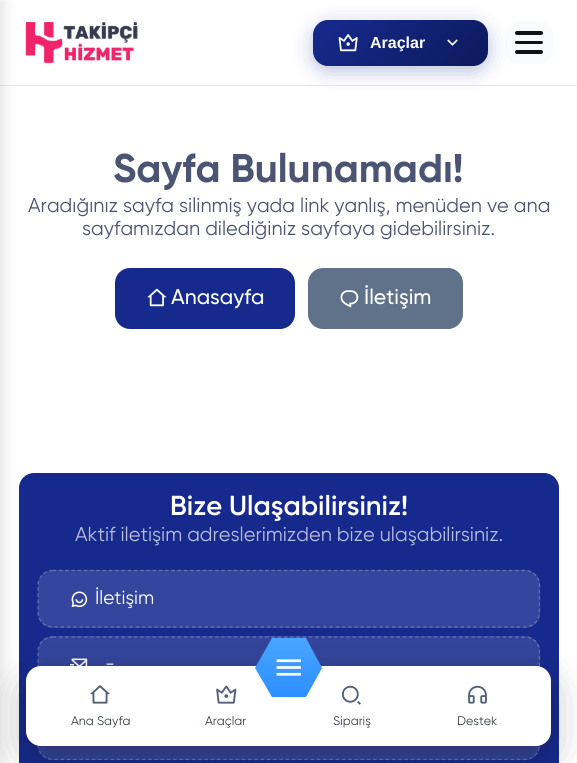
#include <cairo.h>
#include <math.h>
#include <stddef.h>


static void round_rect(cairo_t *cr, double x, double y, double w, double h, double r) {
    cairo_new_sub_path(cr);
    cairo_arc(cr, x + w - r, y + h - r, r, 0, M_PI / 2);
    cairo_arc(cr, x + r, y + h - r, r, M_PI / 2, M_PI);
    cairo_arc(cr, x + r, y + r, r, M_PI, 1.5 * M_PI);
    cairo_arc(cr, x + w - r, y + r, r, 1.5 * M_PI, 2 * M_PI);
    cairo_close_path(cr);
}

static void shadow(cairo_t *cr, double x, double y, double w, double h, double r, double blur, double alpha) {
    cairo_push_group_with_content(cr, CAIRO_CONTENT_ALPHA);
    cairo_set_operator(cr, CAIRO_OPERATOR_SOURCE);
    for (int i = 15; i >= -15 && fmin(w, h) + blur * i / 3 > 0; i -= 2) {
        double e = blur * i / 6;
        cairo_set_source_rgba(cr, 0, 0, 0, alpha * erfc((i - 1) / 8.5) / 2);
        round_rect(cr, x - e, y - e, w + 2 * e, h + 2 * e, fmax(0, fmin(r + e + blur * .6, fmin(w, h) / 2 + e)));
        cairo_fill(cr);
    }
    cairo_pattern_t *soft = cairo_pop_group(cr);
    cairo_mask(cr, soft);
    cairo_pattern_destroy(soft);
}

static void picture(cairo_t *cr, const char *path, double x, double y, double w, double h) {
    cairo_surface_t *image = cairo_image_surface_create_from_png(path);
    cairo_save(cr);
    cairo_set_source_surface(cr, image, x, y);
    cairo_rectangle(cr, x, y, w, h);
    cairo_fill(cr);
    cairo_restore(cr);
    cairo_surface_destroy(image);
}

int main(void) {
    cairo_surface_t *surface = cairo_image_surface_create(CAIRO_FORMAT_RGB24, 577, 763);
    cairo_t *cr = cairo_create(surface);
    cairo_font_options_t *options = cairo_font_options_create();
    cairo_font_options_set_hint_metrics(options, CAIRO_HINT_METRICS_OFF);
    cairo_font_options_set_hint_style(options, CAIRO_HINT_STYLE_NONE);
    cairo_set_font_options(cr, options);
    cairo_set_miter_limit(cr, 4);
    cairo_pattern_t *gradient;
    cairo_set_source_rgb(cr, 1, 1, 1);
    cairo_paint(cr);
    cairo_set_source_rgb(cr, 0.898, 0.906, 0.922);
    cairo_rectangle(cr, 0, 85, 577, 1);
    cairo_fill(cr);
    cairo_set_source_rgb(cr, 0.086, 0.165, 0.557);
    round_rect(cr, 19, 473, 540, 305, 15);
    cairo_fill(cr);
    cairo_set_source_rgb(cr, 0.059, 0.078, 0.098);
    shadow(cr, -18, 0, 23, 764, 0, 6, 0.1);
    picture(cr, "img1.png", 25, 21, 113, 43);
    cairo_set_source_rgb(cr, 0.98, 0.984, 0.988);
    round_rect(cr, 505, 21, 48, 43, 13);
    cairo_fill(cr);
    cairo_set_source_rgb(cr, 0.059, 0.078, 0.098);
    round_rect(cr, 515, 31, 28, 4, 2);
    cairo_fill(cr);
    round_rect(cr, 515, 41, 28, 3, 1.5);
    cairo_fill(cr);
    round_rect(cr, 515, 50, 28, 4, 2);
    cairo_fill(cr);
    cairo_set_source_rgb(cr, 0.086, 0.165, 0.557);
    shadow(cr, 313, 25, 175, 46, 15, 10, 0.3);
    gradient = cairo_pattern_create_linear(345, -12, 455, 98);
    cairo_pattern_add_color_stop_rgba(gradient, 0, 0.086, 0.165, 0.557, 1);
    cairo_pattern_add_color_stop_rgba(gradient, 1, 0.051, 0.102, 0.361, 1);
    cairo_set_source(cr, gradient);
    cairo_pattern_destroy(gradient);
    round_rect(cr, 313, 20, 175, 46, 15);
    cairo_fill(cr);
    picture(cr, "img2.png", 338, 34, 20, 18);
    cairo_select_font_face(cr, "Liberation Sans", CAIRO_FONT_SLANT_NORMAL, CAIRO_FONT_WEIGHT_BOLD);
    cairo_set_font_size(cr, 16);
    cairo_set_source_rgb(cr, 1, 1, 1);
    cairo_move_to(cr, 370, 48);
    cairo_show_text(cr, "Araçlar");
    picture(cr, "img3.png", 447, 39, 11, 7);
    cairo_select_font_face(cr, "Gilroy", CAIRO_FONT_SLANT_NORMAL, CAIRO_FONT_WEIGHT_BOLD);
    cairo_set_font_size(cr, 40);
    cairo_set_source_rgb(cr, 0.298, 0.329, 0.451);
    cairo_move_to(cr, 113, 182);
    cairo_show_text(cr, "Sayfa Bulunamadı!");
    cairo_select_font_face(cr, "Gilroy", CAIRO_FONT_SLANT_NORMAL, CAIRO_FONT_WEIGHT_NORMAL);
    cairo_set_font_size(cr, 20);
    cairo_move_to(cr, 28, 212);
    cairo_show_text(cr, "Aradığınız sayfa silinmiş yada link yanlış, menüden ve ana");
    cairo_move_to(cr, 82, 235);
    cairo_show_text(cr, "sayfamızdan dilediğiniz sayfaya gidebilirsiniz.");
    cairo_set_source_rgb(cr, 0.086, 0.165, 0.557);
    round_rect(cr, 115, 268, 180, 61, 15);
    cairo_fill(cr);
    picture(cr, "img4.png", 147, 288, 20, 19);
    cairo_select_font_face(cr, "Gilroy Medium", CAIRO_FONT_SLANT_NORMAL, CAIRO_FONT_WEIGHT_NORMAL);
    cairo_set_font_size(cr, 21.25);
    cairo_set_source_rgb(cr, 1, 1, 1);
    cairo_move_to(cr, 171, 304);
    cairo_show_text(cr, "Anasayfa");
    cairo_set_source_rgb(cr, 0.373, 0.447, 0.541);
    round_rect(cr, 308, 268, 155, 61, 15);
    cairo_fill(cr);
    picture(cr, "img5.png", 340, 290, 19, 18);
    cairo_set_source_rgb(cr, 1, 1, 1);
    cairo_move_to(cr, 364, 304);
    cairo_show_text(cr, "İletişim");
    cairo_select_font_face(cr, "Gilroy SemiBold", CAIRO_FONT_SLANT_NORMAL, CAIRO_FONT_WEIGHT_NORMAL);
    cairo_set_font_size(cr, 27.5);
    cairo_move_to(cr, 170, 515);
    cairo_show_text(cr, "Bize Ulaşabilirsiniz!");
    cairo_select_font_face(cr, "Gilroy", CAIRO_FONT_SLANT_NORMAL, CAIRO_FONT_WEIGHT_NORMAL);
    cairo_set_font_size(cr, 20);
    cairo_set_source_rgb(cr, 0.718, 0.741, 0.863);
    cairo_move_to(cr, 75, 541);
    cairo_show_text(cr, "Aktif iletişim adreslerimizden bize ulaşabilirsiniz.");
    cairo_set_source_rgb(cr, 0.2, 0.271, 0.612);
    round_rect(cr, 38, 570, 502, 58, 15);
    cairo_fill(cr);
    cairo_new_path(cr);
    cairo_move_to(cr, 52.5, 570.5);
    cairo_line_to(cr, 525, 570.5);
    cairo_curve_to(cr, 533, 570.5, 539.5, 577, 539.5, 585);
    cairo_line_to(cr, 539.5, 612.5);
    cairo_curve_to(cr, 539.5, 620.5, 533, 627, 525, 627);
    cairo_line_to(cr, 52.5, 627);
    cairo_curve_to(cr, 44.5, 627, 38, 620.5, 38, 612.5);
    cairo_line_to(cr, 38, 585);
    cairo_curve_to(cr, 38, 577, 44.5, 570.5, 52.5, 570.5);
    cairo_close_path(cr);
    cairo_set_source_rgba(cr, 1, 1, 1, 0.25);
    cairo_set_line_width(cr, 1.2);
    cairo_set_dash(cr, (double[]){3.75, 2.5}, 2, 0);
    cairo_stroke(cr);
    picture(cr, "img6.png", 71, 591, 17, 17);
    cairo_set_font_size(cr, 19);
    cairo_set_source_rgb(cr, 1, 1, 1);
    cairo_move_to(cr, 95, 604);
    cairo_show_text(cr, "İletişim");
    cairo_set_source_rgb(cr, 0.2, 0.271, 0.612);
    round_rect(cr, 38, 636, 502, 58, 15);
    cairo_fill(cr);
    cairo_new_path(cr);
    cairo_move_to(cr, 52.5, 637);
    cairo_line_to(cr, 525, 637);
    cairo_curve_to(cr, 533, 637, 539.5, 643.5, 539.5, 651);
    cairo_line_to(cr, 539.5, 679);
    cairo_curve_to(cr, 539.5, 686.5, 533, 693, 525, 693);
    cairo_line_to(cr, 52.5, 693);
    cairo_curve_to(cr, 44.5, 693, 38, 686.5, 38, 679);
    cairo_line_to(cr, 38, 651);
    cairo_curve_to(cr, 38, 643.5, 44.5, 637, 52.5, 637);
    cairo_close_path(cr);
    cairo_set_source_rgba(cr, 1, 1, 1, 0.25);
    cairo_stroke(cr);
    picture(cr, "img7.png", 70, 658, 18, 8);
    cairo_set_source_rgb(cr, 1, 1, 1);
    cairo_move_to(cr, 105, 670);
    cairo_show_text(cr, "-");
    cairo_set_source_rgb(cr, 0.2, 0.271, 0.612);
    round_rect(cr, 38, 703, 502, 57, 15);
    cairo_fill(cr);
    cairo_new_path(cr);
    cairo_move_to(cr, 52.5, 703);
    cairo_line_to(cr, 525, 703);
    cairo_curve_to(cr, 533, 703, 539.5, 709.5, 539.5, 717.5);
    cairo_line_to(cr, 539.5, 745);
    cairo_curve_to(cr, 539.5, 753, 533, 759.5, 525, 759.5);
    cairo_line_to(cr, 52.5, 759.5);
    cairo_curve_to(cr, 44.5, 759.5, 38, 753, 38, 745);
    cairo_line_to(cr, 38, 717.5);
    cairo_curve_to(cr, 38, 709.5, 44.5, 703, 52.5, 703);
    cairo_close_path(cr);
    cairo_set_source_rgba(cr, 1, 1, 1, 0.25);
    cairo_stroke(cr);
    cairo_set_source_rgb(cr, 0.071, 0.059, 0.078);
    shadow(cr, 26, 679, 525, 80, 15, 19, 0.32);
    cairo_set_source_rgb(cr, 1, 1, 1);
    round_rect(cr, 26, 666, 525, 80, 15);
    cairo_fill(cr);
    picture(cr, "img10.png", 216, 685, 21, 19);
    picture(cr, "img11.png", 341, 685, 20, 20);
    cairo_save(cr);
    cairo_new_path(cr);
    cairo_move_to(cr, 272, 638.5);
    cairo_line_to(cr, 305.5, 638.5);
    cairo_line_to(cr, 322.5, 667.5);
    cairo_line_to(cr, 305.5, 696.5);
    cairo_line_to(cr, 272, 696.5);
    cairo_line_to(cr, 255, 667.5);
    cairo_close_path(cr);
    cairo_clip(cr);
    cairo_set_source_rgb(cr, 0.169, 0.549, 1);
    shadow(cr, 255, 644, 68, 67, 0, 12.5, 0.28);
    cairo_restore(cr);
    gradient = cairo_pattern_create_linear(289, 634, 289, 701);
    cairo_pattern_add_color_stop_rgba(gradient, 0, 0.29, 0.659, 1, 1);
    cairo_pattern_add_color_stop_rgba(gradient, 1, 0.169, 0.549, 1, 1);
    cairo_set_source(cr, gradient);
    cairo_pattern_destroy(gradient);
    cairo_new_path(cr);
    cairo_move_to(cr, 272, 638);
    cairo_line_to(cr, 255, 668);
    cairo_line_to(cr, 272, 697);
    cairo_line_to(cr, 306, 697);
    cairo_line_to(cr, 322, 668);
    cairo_line_to(cr, 306, 638);
    cairo_close_path(cr);
    cairo_fill(cr);
    picture(cr, "img8.png", 276, 659, 25, 17);
    picture(cr, "img9.png", 89, 685, 22, 19);
    cairo_set_font_size(cr, 12.5);
    cairo_set_source_rgb(cr, 0.22, 0.251, 0.29);
    cairo_move_to(cr, 71, 725);
    cairo_show_text(cr, "Ana Sayfa");
    cairo_move_to(cr, 205, 725);
    cairo_show_text(cr, "Araçlar");
    cairo_move_to(cr, 333, 725);
    cairo_show_text(cr, "Sipariş");
    picture(cr, "img12.png", 468, 685, 19, 19);
    cairo_move_to(cr, 457, 725);
    cairo_show_text(cr, "Destek");
    cairo_surface_write_to_png(surface, "page.png");
    cairo_font_options_destroy(options);
    cairo_destroy(cr);
    cairo_surface_destroy(surface);
    return 0;
}
